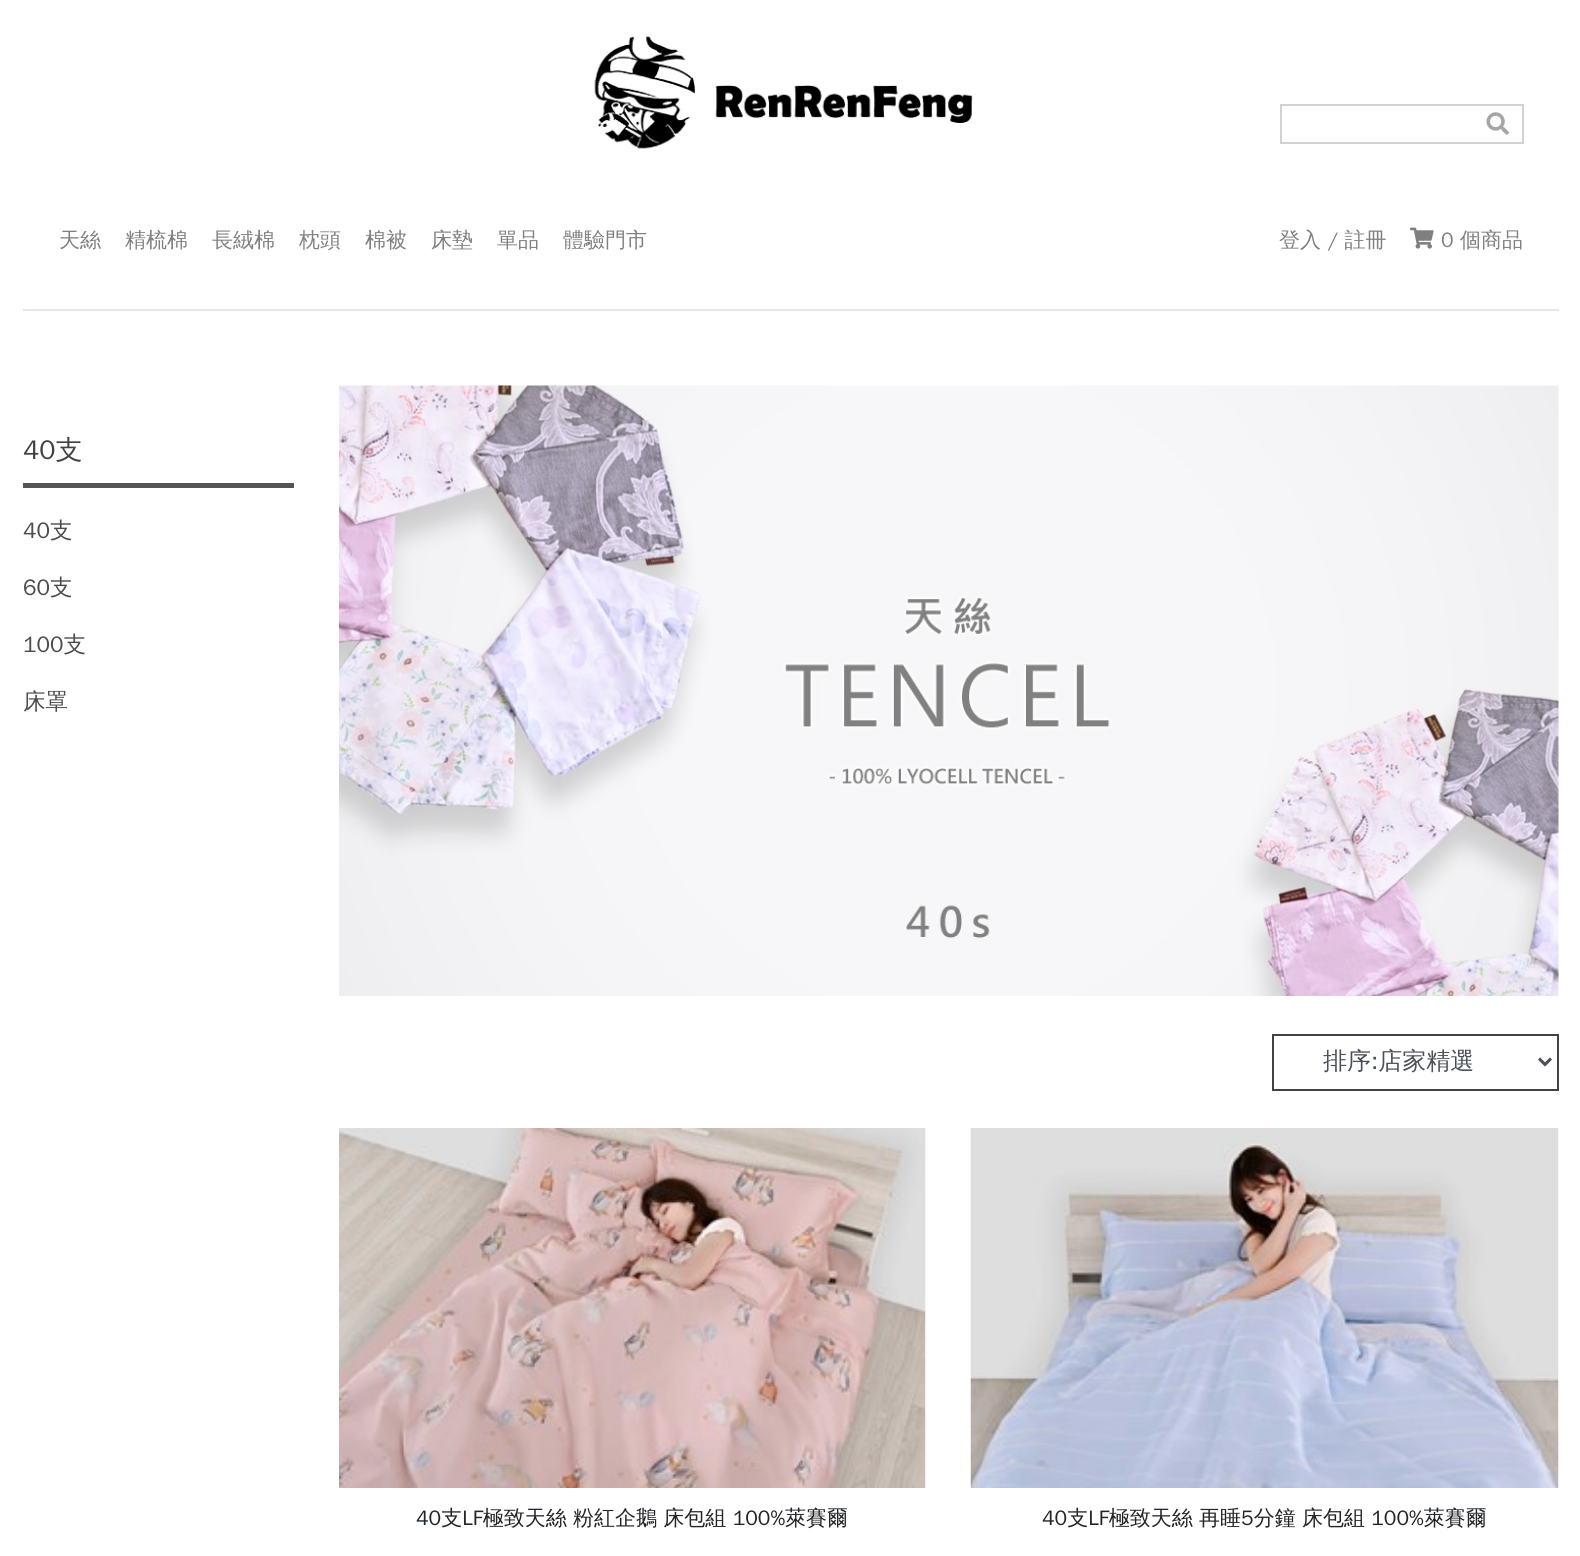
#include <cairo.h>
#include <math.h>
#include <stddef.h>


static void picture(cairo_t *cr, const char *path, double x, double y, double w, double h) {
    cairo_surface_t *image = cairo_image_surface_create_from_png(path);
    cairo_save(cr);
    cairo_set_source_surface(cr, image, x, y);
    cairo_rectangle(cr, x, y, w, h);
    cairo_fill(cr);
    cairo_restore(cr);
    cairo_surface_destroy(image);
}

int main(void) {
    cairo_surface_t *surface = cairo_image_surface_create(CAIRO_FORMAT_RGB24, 1580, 1556);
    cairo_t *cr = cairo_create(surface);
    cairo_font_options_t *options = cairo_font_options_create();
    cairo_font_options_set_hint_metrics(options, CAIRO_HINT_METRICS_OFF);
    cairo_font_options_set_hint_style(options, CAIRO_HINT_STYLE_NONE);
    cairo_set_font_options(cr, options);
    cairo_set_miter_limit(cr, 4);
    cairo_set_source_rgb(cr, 1, 1, 1);
    cairo_paint(cr);
    picture(cr, "img1.png", 594, 34, 379, 115);
    cairo_set_source_rgb(cr, 0.882, 0.906, 0.925);
    cairo_rectangle(cr, 23, 309, 1536, 2);
    cairo_fill(cr);
    cairo_select_font_face(cr, "WenQuanYi Zen Hei Medium", CAIRO_FONT_SLANT_NORMAL, CAIRO_FONT_WEIGHT_NORMAL);
    cairo_set_font_size(cr, 21);
    cairo_set_source_rgb(cr, 0.502, 0.502, 0.502);
    cairo_move_to(cr, 59, 247);
    cairo_show_text(cr, "天絲");
    cairo_move_to(cr, 125, 247);
    cairo_show_text(cr, "精梳棉");
    cairo_move_to(cr, 212, 247);
    cairo_show_text(cr, "長絨棉");
    cairo_move_to(cr, 299, 247);
    cairo_show_text(cr, "枕頭");
    cairo_move_to(cr, 365, 247);
    cairo_show_text(cr, "棉被");
    cairo_move_to(cr, 431, 247);
    cairo_show_text(cr, "床墊");
    cairo_move_to(cr, 497, 247);
    cairo_show_text(cr, "單品");
    cairo_move_to(cr, 563, 247);
    cairo_show_text(cr, "體驗門市");
    cairo_rectangle(cr, 1281, 105, 242, 38);
    cairo_set_source_rgb(cr, 0.824, 0.824, 0.824);
    cairo_stroke(cr);
    picture(cr, "img2.png", 1486, 112, 23, 23);
    cairo_set_source_rgb(cr, 0.502, 0.502, 0.502);
    cairo_move_to(cr, 1279, 247);
    cairo_show_text(cr, "登入 / 註冊");
    picture(cr, "img3.png", 1410, 227, 24, 22);
    cairo_move_to(cr, 1441, 247);
    cairo_show_text(cr, "0 個商品");
    cairo_set_source_rgb(cr, 0.329, 0.329, 0.329);
    cairo_rectangle(cr, 23, 483, 271, 5);
    cairo_fill(cr);
    cairo_set_font_size(cr, 27);
    cairo_set_source_rgb(cr, 0.259, 0.259, 0.259);
    cairo_move_to(cr, 23, 459);
    cairo_show_text(cr, "40支");
    cairo_set_font_size(cr, 22.5);
    cairo_set_source_rgb(cr, 0.298, 0.298, 0.298);
    cairo_move_to(cr, 23, 538);
    cairo_show_text(cr, "40支");
    cairo_move_to(cr, 23, 595);
    cairo_show_text(cr, "60支");
    cairo_move_to(cr, 23, 652);
    cairo_show_text(cr, "100支");
    cairo_move_to(cr, 23, 709);
    cairo_show_text(cr, "床罩");
    picture(cr, "img4.png", 339, 385, 1220, 611);
    cairo_rectangle(cr, 1273, 1035, 285, 55);
    cairo_set_source_rgb(cr, 0.259, 0.259, 0.259);
    cairo_stroke(cr);
    cairo_new_path(cr);
    cairo_move_to(cr, 1539, 1058.5);
    cairo_line_to(cr, 1545, 1064.5);
    cairo_line_to(cr, 1551, 1058.5);
    cairo_set_source_rgb(cr, 0.286, 0.314, 0.341);
    cairo_set_line_width(cr, 3);
    cairo_stroke(cr);
    cairo_set_font_size(cr, 24);
    cairo_move_to(cr, 1323, 1069);
    cairo_show_text(cr, "排序:店家精選");
    picture(cr, "img5.png", 339, 1128, 587, 360);
    cairo_set_font_size(cr, 21);
    cairo_set_source_rgb(cr, 0.129, 0.145, 0.161);
    cairo_move_to(cr, 416, 1525);
    cairo_show_text(cr, "40支LF極致天絲 粉紅企鵝 床包組 100%萊賽爾");
    picture(cr, "img6.png", 970, 1128, 589, 360);
    cairo_move_to(cr, 1042, 1525);
    cairo_show_text(cr, "40支LF極致天絲 再睡5分鐘 床包組 100%萊賽爾");
    cairo_surface_write_to_png(surface, "page.png");
    cairo_font_options_destroy(options);
    cairo_destroy(cr);
    cairo_surface_destroy(surface);
    return 0;
}
